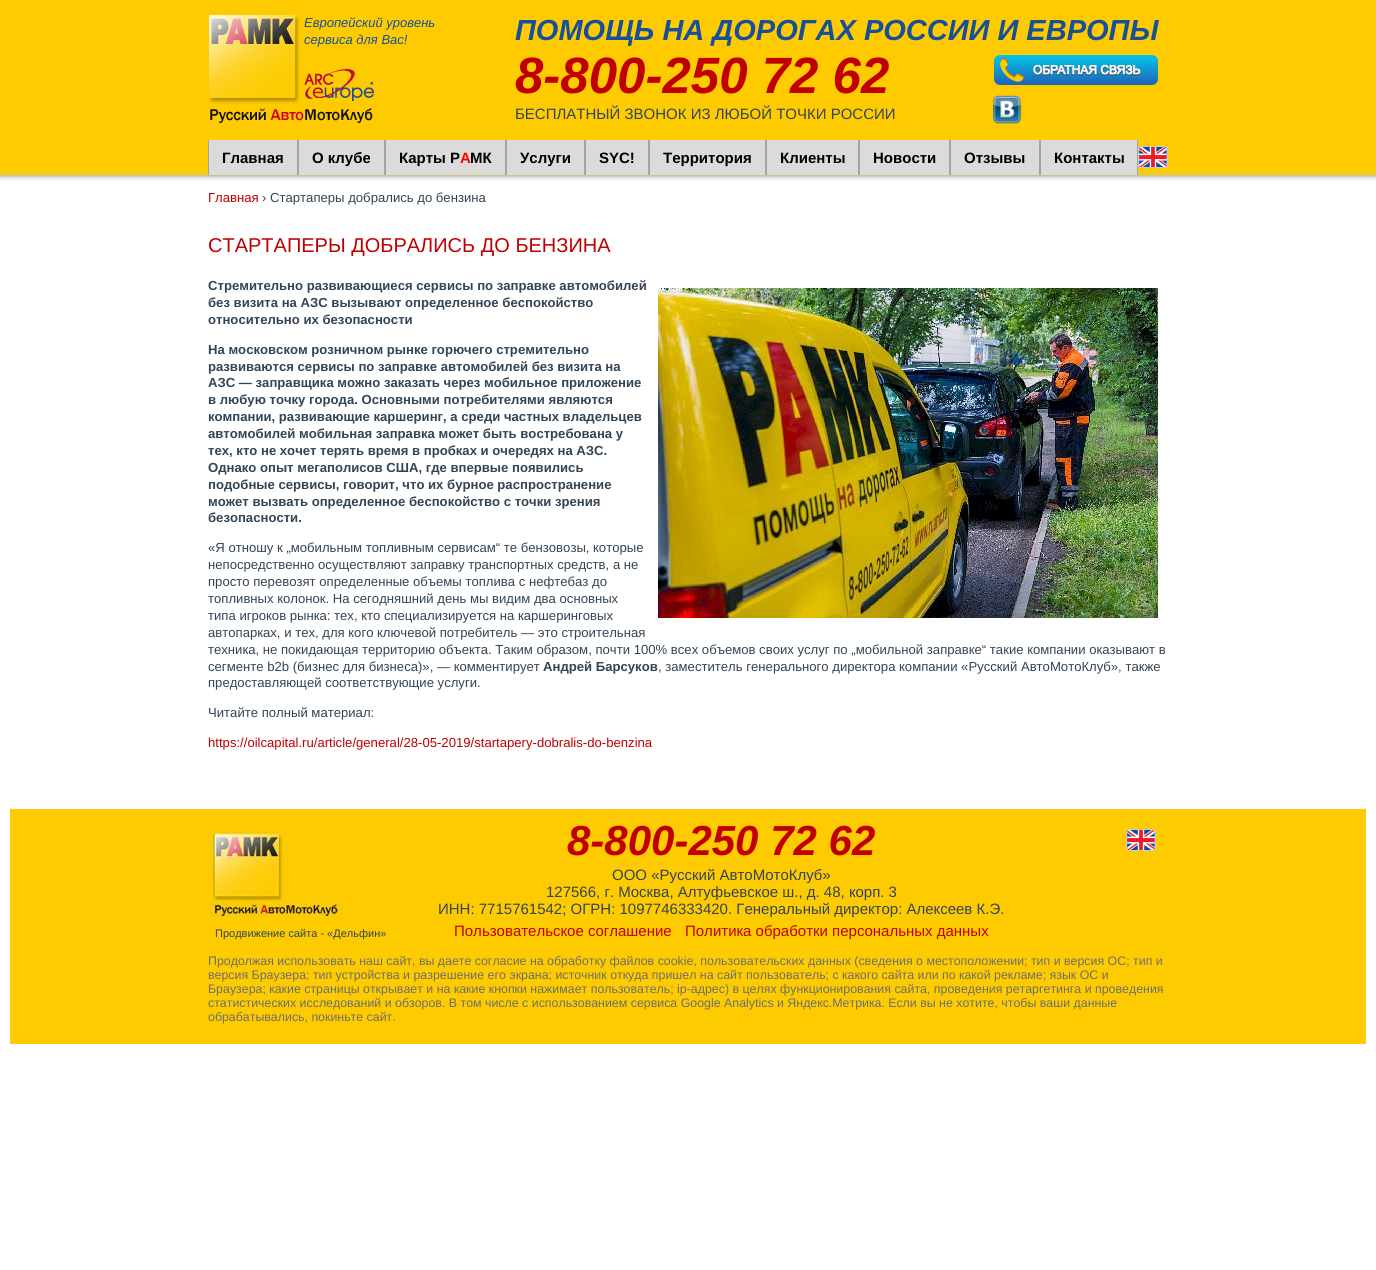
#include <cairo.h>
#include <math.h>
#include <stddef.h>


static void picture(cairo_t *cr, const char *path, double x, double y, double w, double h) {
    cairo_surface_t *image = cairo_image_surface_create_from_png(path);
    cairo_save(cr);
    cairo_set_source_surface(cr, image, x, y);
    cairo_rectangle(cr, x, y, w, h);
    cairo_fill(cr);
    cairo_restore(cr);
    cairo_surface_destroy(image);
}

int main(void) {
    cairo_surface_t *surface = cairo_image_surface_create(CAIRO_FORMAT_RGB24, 1376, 1270);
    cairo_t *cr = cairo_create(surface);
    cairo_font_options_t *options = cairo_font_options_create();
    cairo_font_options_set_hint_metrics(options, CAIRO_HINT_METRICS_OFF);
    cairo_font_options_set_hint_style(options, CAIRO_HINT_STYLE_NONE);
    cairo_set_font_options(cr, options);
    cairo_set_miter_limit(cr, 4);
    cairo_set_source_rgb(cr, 1, 1, 1);
    cairo_paint(cr);
    picture(cr, "img1.png", 0, 0, 1376, 181);
    picture(cr, "img2.png", 209, 15, 165, 108);
    cairo_select_font_face(cr, "Liberation Sans", CAIRO_FONT_SLANT_ITALIC, CAIRO_FONT_WEIGHT_NORMAL);
    cairo_set_font_size(cr, 13);
    cairo_set_source_rgb(cr, 0.09, 0.31, 0.6);
    cairo_move_to(cr, 304, 27);
    cairo_show_text(cr, "Европейский уровень");
    cairo_move_to(cr, 304, 44);
    cairo_show_text(cr, "сервиса для Вас!");
    cairo_select_font_face(cr, "Liberation Sans", CAIRO_FONT_SLANT_ITALIC, CAIRO_FONT_WEIGHT_BOLD);
    cairo_set_font_size(cr, 29);
    cairo_move_to(cr, 515, 40);
    cairo_show_text(cr, "ПОМОЩЬ НА ДОРОГАХ РОССИИ И ЕВРОПЫ");
    cairo_set_font_size(cr, 51);
    cairo_set_source_rgb(cr, 0.753, 0, 0);
    cairo_move_to(cr, 515, 93);
    cairo_show_text(cr, "8-800-250 72 62");
    cairo_select_font_face(cr, "Liberation Sans", CAIRO_FONT_SLANT_NORMAL, CAIRO_FONT_WEIGHT_NORMAL);
    cairo_set_font_size(cr, 15);
    cairo_set_source_rgb(cr, 0.2, 0.267, 0.333);
    cairo_move_to(cr, 515, 119);
    cairo_show_text(cr, "БЕСПЛАТНЫЙ ЗВОНОК ИЗ ЛЮБОЙ ТОЧКИ РОССИИ");
    picture(cr, "img3.png", 994, 55, 164, 30);
    picture(cr, "img4.png", 993, 95, 29, 29);
    cairo_set_source_rgb(cr, 0.859, 0.859, 0.859);
    cairo_rectangle(cr, 209, 140, 88, 35);
    cairo_fill(cr);
    cairo_set_source_rgb(cr, 0.643, 0.643, 0.643);
    cairo_rectangle(cr, 297, 140, 2, 35);
    cairo_fill(cr);
    cairo_rectangle(cr, 208, 140, 1, 35);
    cairo_fill(cr);
    cairo_select_font_face(cr, "Liberation Sans", CAIRO_FONT_SLANT_NORMAL, CAIRO_FONT_WEIGHT_BOLD);
    cairo_set_source_rgb(cr, 0, 0, 0);
    cairo_move_to(cr, 222, 163);
    cairo_show_text(cr, "Главная");
    cairo_set_source_rgb(cr, 0.859, 0.859, 0.859);
    cairo_rectangle(cr, 299, 140, 85, 35);
    cairo_fill(cr);
    cairo_set_source_rgb(cr, 0.643, 0.643, 0.643);
    cairo_rectangle(cr, 384, 140, 2, 35);
    cairo_fill(cr);
    cairo_set_source_rgb(cr, 0, 0, 0);
    cairo_move_to(cr, 312, 163);
    cairo_show_text(cr, "О клубе");
    cairo_set_source_rgb(cr, 0.859, 0.859, 0.859);
    cairo_rectangle(cr, 386, 140, 119, 35);
    cairo_fill(cr);
    cairo_set_source_rgb(cr, 0.643, 0.643, 0.643);
    cairo_rectangle(cr, 505, 140, 2, 35);
    cairo_fill(cr);
    cairo_set_source_rgb(cr, 0, 0, 0);
    cairo_move_to(cr, 399, 163);
    cairo_show_text(cr, "Карты Р");
    cairo_set_source_rgb(cr, 1, 0, 0);
    cairo_move_to(cr, 460, 163);
    cairo_show_text(cr, "A");
    cairo_set_source_rgb(cr, 0, 0, 0);
    cairo_move_to(cr, 470, 163);
    cairo_show_text(cr, "МК");
    cairo_set_source_rgb(cr, 0.859, 0.859, 0.859);
    cairo_rectangle(cr, 507, 140, 77, 35);
    cairo_fill(cr);
    cairo_set_source_rgb(cr, 0.643, 0.643, 0.643);
    cairo_rectangle(cr, 584, 140, 2, 35);
    cairo_fill(cr);
    cairo_set_source_rgb(cr, 0, 0, 0);
    cairo_move_to(cr, 520, 163);
    cairo_show_text(cr, "Услуги");
    cairo_set_source_rgb(cr, 0.859, 0.859, 0.859);
    cairo_rectangle(cr, 586, 140, 62, 35);
    cairo_fill(cr);
    cairo_set_source_rgb(cr, 0.643, 0.643, 0.643);
    cairo_rectangle(cr, 648, 140, 2, 35);
    cairo_fill(cr);
    cairo_set_source_rgb(cr, 0, 0, 0);
    cairo_move_to(cr, 599, 163);
    cairo_show_text(cr, "SYC!");
    cairo_set_source_rgb(cr, 0.859, 0.859, 0.859);
    cairo_rectangle(cr, 650, 140, 115, 35);
    cairo_fill(cr);
    cairo_set_source_rgb(cr, 0.643, 0.643, 0.643);
    cairo_rectangle(cr, 765, 140, 2, 35);
    cairo_fill(cr);
    cairo_set_source_rgb(cr, 0, 0, 0);
    cairo_move_to(cr, 663, 163);
    cairo_show_text(cr, "Территория");
    cairo_set_source_rgb(cr, 0.859, 0.859, 0.859);
    cairo_rectangle(cr, 767, 140, 91, 35);
    cairo_fill(cr);
    cairo_set_source_rgb(cr, 0.643, 0.643, 0.643);
    cairo_rectangle(cr, 858, 140, 2, 35);
    cairo_fill(cr);
    cairo_set_source_rgb(cr, 0, 0, 0);
    cairo_move_to(cr, 780, 163);
    cairo_show_text(cr, "Клиенты");
    cairo_set_source_rgb(cr, 0.859, 0.859, 0.859);
    cairo_rectangle(cr, 860, 140, 89, 35);
    cairo_fill(cr);
    cairo_set_source_rgb(cr, 0.643, 0.643, 0.643);
    cairo_rectangle(cr, 949, 140, 2, 35);
    cairo_fill(cr);
    cairo_set_source_rgb(cr, 0, 0, 0);
    cairo_move_to(cr, 873, 163);
    cairo_show_text(cr, "Новости");
    cairo_set_source_rgb(cr, 0.859, 0.859, 0.859);
    cairo_rectangle(cr, 951, 140, 88, 35);
    cairo_fill(cr);
    cairo_set_source_rgb(cr, 0.643, 0.643, 0.643);
    cairo_rectangle(cr, 1039, 140, 2, 35);
    cairo_fill(cr);
    cairo_set_source_rgb(cr, 0, 0, 0);
    cairo_move_to(cr, 964, 163);
    cairo_show_text(cr, "Отзывы");
    cairo_set_source_rgb(cr, 0.859, 0.859, 0.859);
    cairo_rectangle(cr, 1041, 140, 96, 35);
    cairo_fill(cr);
    cairo_set_source_rgb(cr, 0.643, 0.643, 0.643);
    cairo_rectangle(cr, 1137, 140, 1, 35);
    cairo_fill(cr);
    cairo_set_source_rgb(cr, 0, 0, 0);
    cairo_move_to(cr, 1054, 163);
    cairo_show_text(cr, "Контакты");
    picture(cr, "img5.png", 1138, 146, 30, 22);
    cairo_select_font_face(cr, "Liberation Sans", CAIRO_FONT_SLANT_NORMAL, CAIRO_FONT_WEIGHT_NORMAL);
    cairo_set_font_size(cr, 13.12);
    cairo_set_source_rgb(cr, 0.753, 0, 0);
    cairo_move_to(cr, 208, 202);
    cairo_show_text(cr, "Главная");
    cairo_set_source_rgb(cr, 0.2, 0.267, 0.333);
    cairo_move_to(cr, 262, 202);
    cairo_show_text(cr, "› Стартаперы добрались до бензина");
    cairo_set_font_size(cr, 20);
    cairo_set_source_rgb(cr, 0.753, 0, 0);
    cairo_move_to(cr, 208, 252);
    cairo_show_text(cr, "СТАРТАПЕРЫ ДОБРАЛИСЬ ДО БЕНЗИНА");
    cairo_select_font_face(cr, "Liberation Sans", CAIRO_FONT_SLANT_NORMAL, CAIRO_FONT_WEIGHT_BOLD);
    cairo_set_font_size(cr, 13.12);
    cairo_set_source_rgb(cr, 0.2, 0.267, 0.333);
    cairo_move_to(cr, 208, 290);
    cairo_show_text(cr, "Стремительно развивающиеся сервисы по заправке автомобилей");
    cairo_move_to(cr, 208, 307);
    cairo_show_text(cr, "без визита на АЗС вызывают определенное беспокойство");
    picture(cr, "img6.png", 658, 288, 500, 330);
    cairo_move_to(cr, 208, 324);
    cairo_show_text(cr, "относительно их безопасности");
    cairo_move_to(cr, 208, 354);
    cairo_show_text(cr, "На московском розничном рынке горючего стремительно");
    cairo_move_to(cr, 208, 371);
    cairo_show_text(cr, "развиваются сервисы по заправке автомобилей без визита на");
    cairo_move_to(cr, 208, 387);
    cairo_show_text(cr, "АЗС — заправщика можно заказать через мобильное приложение");
    cairo_move_to(cr, 208, 404);
    cairo_show_text(cr, "в любую точку города. Основными потребителями являются");
    cairo_move_to(cr, 208, 421);
    cairo_show_text(cr, "компании, развивающие каршеринг, а среди частных владельцев");
    cairo_move_to(cr, 208, 438);
    cairo_show_text(cr, "автомобилей мобильная заправка может быть востребована у");
    cairo_move_to(cr, 208, 455);
    cairo_show_text(cr, "тех, кто не хочет терять время в пробках и очередях на АЗС.");
    cairo_move_to(cr, 208, 472);
    cairo_show_text(cr, "Однако опыт мегаполисов США, где впервые появились");
    cairo_move_to(cr, 208, 489);
    cairo_show_text(cr, "подобные сервисы, говорит, что их бурное распространение");
    cairo_move_to(cr, 208, 506);
    cairo_show_text(cr, "может вызвать определенное беспокойство с точки зрения");
    cairo_move_to(cr, 208, 522);
    cairo_show_text(cr, "безопасности.");
    cairo_select_font_face(cr, "Liberation Sans", CAIRO_FONT_SLANT_NORMAL, CAIRO_FONT_WEIGHT_NORMAL);
    cairo_move_to(cr, 208, 552);
    cairo_show_text(cr, "«Я отношу к „мобильным топливным сервисам“ те бензовозы, которые");
    cairo_move_to(cr, 208, 569);
    cairo_show_text(cr, "непосредственно осуществляют заправку транспортных средств, а не");
    cairo_move_to(cr, 208, 586);
    cairo_show_text(cr, "просто перевозят определенные объемы топлива с нефтебаз до");
    cairo_move_to(cr, 208, 603);
    cairo_show_text(cr, "топливных колонок. На сегодняшний день мы видим два основных");
    cairo_move_to(cr, 208, 620);
    cairo_show_text(cr, "типа игроков рынка: тех, кто специализируется на каршеринговых");
    cairo_move_to(cr, 208, 637);
    cairo_show_text(cr, "автопарках, и тех, для кого ключевой потребитель — это строительная");
    cairo_move_to(cr, 208, 654);
    cairo_show_text(cr, "техника, не покидающая территорию объекта. Таким образом, почти 100% всех объемов своих услуг по „мобильной заправке“ такие компании оказывают в");
    cairo_move_to(cr, 208, 671);
    cairo_show_text(cr, "сегменте b2b (бизнес для бизнеса)», — комментирует");
    cairo_select_font_face(cr, "Liberation Sans", CAIRO_FONT_SLANT_NORMAL, CAIRO_FONT_WEIGHT_BOLD);
    cairo_move_to(cr, 543, 671);
    cairo_show_text(cr, "Андрей Барсуков");
    cairo_select_font_face(cr, "Liberation Sans", CAIRO_FONT_SLANT_NORMAL, CAIRO_FONT_WEIGHT_NORMAL);
    cairo_move_to(cr, 658, 671);
    cairo_show_text(cr, ", заместитель генерального директора компании «Русский АвтоМотоКлуб», также");
    cairo_move_to(cr, 208, 687);
    cairo_show_text(cr, "предоставляющей соответствующие услуги.");
    cairo_move_to(cr, 208, 717);
    cairo_show_text(cr, "Читайте полный материал:");
    cairo_set_source_rgb(cr, 0.753, 0, 0);
    cairo_move_to(cr, 208, 747);
    cairo_show_text(cr, "https://oilcapital.ru/article/general/28-05-2019/startapery-dobralis-do-benzina");
    cairo_set_source_rgb(cr, 0.992, 0.796, 0);
    cairo_rectangle(cr, 10, 809, 1356, 235);
    cairo_fill(cr);
    cairo_select_font_face(cr, "Liberation Sans", CAIRO_FONT_SLANT_ITALIC, CAIRO_FONT_WEIGHT_BOLD);
    cairo_set_font_size(cr, 42);
    cairo_set_source_rgb(cr, 0.753, 0, 0);
    cairo_move_to(cr, 567, 855);
    cairo_show_text(cr, "8-800-250 72 62");
    cairo_select_font_face(cr, "Liberation Sans", CAIRO_FONT_SLANT_NORMAL, CAIRO_FONT_WEIGHT_NORMAL);
    cairo_set_font_size(cr, 15);
    cairo_set_source_rgb(cr, 0.2, 0.267, 0.333);
    cairo_move_to(cr, 612, 880);
    cairo_show_text(cr, "ООО «Русский АвтоМотоКлуб»");
    cairo_move_to(cr, 546, 897);
    cairo_show_text(cr, "127566, г. Москва, Алтуфьевское ш., д. 48, корп. 3");
    cairo_move_to(cr, 438, 914);
    cairo_show_text(cr, "ИНН: 7715761542; ОГРН: 1097746333420. Генеральный директор: Алексеев К.Э.");
    cairo_set_source_rgb(cr, 0.753, 0, 0);
    cairo_move_to(cr, 454, 936);
    cairo_show_text(cr, "Пользовательское соглашение");
    cairo_move_to(cr, 685, 936);
    cairo_show_text(cr, "Политика обработки персональных данных");
    picture(cr, "img7.png", 1126, 829, 30, 22);
    picture(cr, "img8.png", 208, 829, 135, 91);
    cairo_set_font_size(cr, 11);
    cairo_set_source_rgb(cr, 0.2, 0.267, 0.333);
    cairo_move_to(cr, 215, 937);
    cairo_show_text(cr, "Продвижение сайта - «Дельфин»");
    cairo_set_font_size(cr, 12.38);
    cairo_set_source_rgb(cr, 0.431, 0.431, 0.431);
    cairo_move_to(cr, 208, 965);
    cairo_show_text(cr, "Продолжая использовать наш сайт, вы даете согласие на обработку файлов cookie, пользовательских данных (сведения о местоположении; тип и версия ОС; тип и");
    cairo_move_to(cr, 208, 979);
    cairo_show_text(cr, "версия Браузера; тип устройства и разрешение его экрана; источник откуда пришел на сайт пользователь; с какого сайта или по какой рекламе; язык ОС и");
    cairo_move_to(cr, 208, 993);
    cairo_show_text(cr, "Браузера; какие страницы открывает и на какие кнопки нажимает пользователь; ip-адрес) в целях функционирования сайта, проведения ретаргетинга и проведения");
    cairo_move_to(cr, 208, 1007);
    cairo_show_text(cr, "статистических исследований и обзоров. В том числе с использованием сервиса Google Analytics и Яндекс.Метрика. Если вы не хотите, чтобы ваши данные");
    cairo_move_to(cr, 208, 1021);
    cairo_show_text(cr, "обрабатывались, покиньте сайт.");
    cairo_surface_write_to_png(surface, "page.png");
    cairo_font_options_destroy(options);
    cairo_destroy(cr);
    cairo_surface_destroy(surface);
    return 0;
}
